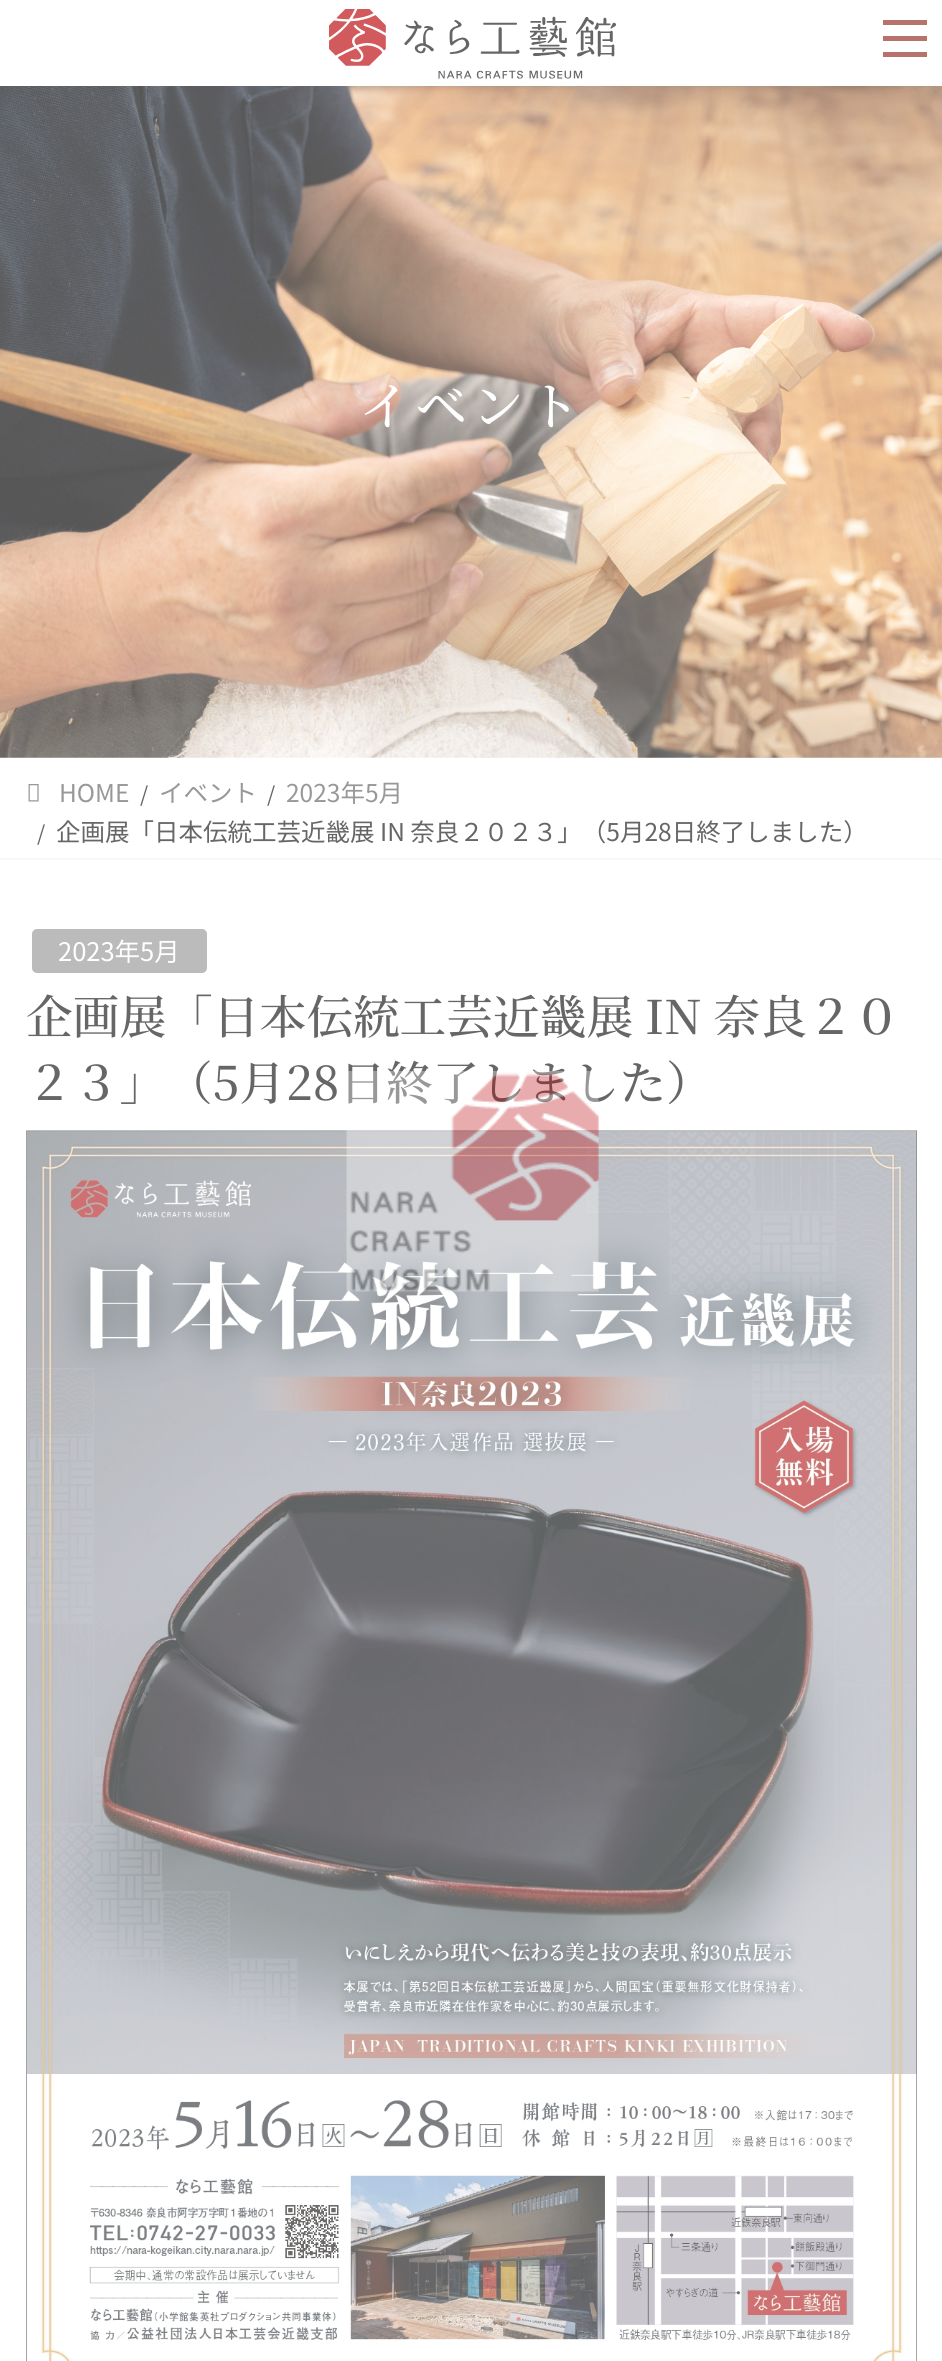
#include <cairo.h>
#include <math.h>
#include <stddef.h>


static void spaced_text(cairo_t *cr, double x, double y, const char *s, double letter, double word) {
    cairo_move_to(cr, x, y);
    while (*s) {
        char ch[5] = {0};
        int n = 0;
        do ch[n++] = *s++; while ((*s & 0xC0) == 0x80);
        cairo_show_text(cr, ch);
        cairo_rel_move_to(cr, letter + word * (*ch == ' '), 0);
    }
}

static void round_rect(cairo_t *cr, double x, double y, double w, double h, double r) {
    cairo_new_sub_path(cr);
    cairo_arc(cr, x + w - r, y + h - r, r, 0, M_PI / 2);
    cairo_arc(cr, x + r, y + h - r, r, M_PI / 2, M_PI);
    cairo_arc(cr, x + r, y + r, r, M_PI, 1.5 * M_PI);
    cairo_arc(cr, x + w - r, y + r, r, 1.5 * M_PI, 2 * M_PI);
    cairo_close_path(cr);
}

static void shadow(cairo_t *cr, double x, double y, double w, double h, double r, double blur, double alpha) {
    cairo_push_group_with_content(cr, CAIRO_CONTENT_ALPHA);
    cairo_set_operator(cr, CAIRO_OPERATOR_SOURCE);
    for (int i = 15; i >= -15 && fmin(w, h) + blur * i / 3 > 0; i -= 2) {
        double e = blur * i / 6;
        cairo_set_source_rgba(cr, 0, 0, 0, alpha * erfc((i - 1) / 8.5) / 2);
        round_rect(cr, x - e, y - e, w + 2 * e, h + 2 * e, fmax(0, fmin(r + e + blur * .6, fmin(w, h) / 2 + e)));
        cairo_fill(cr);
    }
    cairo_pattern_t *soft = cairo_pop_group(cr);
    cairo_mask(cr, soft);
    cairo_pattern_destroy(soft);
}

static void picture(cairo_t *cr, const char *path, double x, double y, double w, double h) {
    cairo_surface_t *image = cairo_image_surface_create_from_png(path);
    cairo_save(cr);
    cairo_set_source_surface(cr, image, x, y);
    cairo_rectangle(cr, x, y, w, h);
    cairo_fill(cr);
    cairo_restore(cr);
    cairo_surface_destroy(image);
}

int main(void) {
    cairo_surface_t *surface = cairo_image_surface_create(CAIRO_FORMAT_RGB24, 942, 2361);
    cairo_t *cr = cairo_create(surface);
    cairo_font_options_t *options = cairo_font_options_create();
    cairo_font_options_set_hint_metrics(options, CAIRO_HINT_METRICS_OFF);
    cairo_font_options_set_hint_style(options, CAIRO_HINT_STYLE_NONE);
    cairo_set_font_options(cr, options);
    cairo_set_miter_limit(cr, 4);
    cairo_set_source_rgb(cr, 1, 1, 1);
    cairo_paint(cr);
    picture(cr, "img2.png", 0, 86, 942, 672);
    cairo_set_source_rgb(cr, 0.329, 0.329, 0.329);
    shadow(cr, 0, 2, 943, 86, 0, 2.5, 0.1);
    cairo_set_source_rgb(cr, 1, 1, 1);
    cairo_rectangle(cr, 0, 0, 942, 86);
    cairo_fill(cr);
    picture(cr, "img1.png", 329, 9, 287, 70);
    cairo_set_source_rgb(cr, 0.714, 0.451, 0.424);
    cairo_rectangle(cr, 883, 20, 44, 5);
    cairo_fill(cr);
    cairo_rectangle(cr, 883, 36, 44, 5);
    cairo_fill(cr);
    cairo_rectangle(cr, 883, 52, 44, 5);
    cairo_fill(cr);
    cairo_select_font_face(cr, "Noto Serif JP Medium", CAIRO_FONT_SLANT_NORMAL, CAIRO_FONT_WEIGHT_NORMAL);
    cairo_set_font_size(cr, 51.5);
    cairo_set_source_rgb(cr, 1, 1, 1);
    spaced_text(cr, 359, 425, "イベント", 5, 0);
    cairo_set_source_rgb(cr, 0.965, 0.965, 0.965);
    cairo_rectangle(cr, 0, 858, 942, 2);
    cairo_fill(cr);
    picture(cr, "img3.png", 28, 784, 11, 18);
    cairo_select_font_face(cr, "Noto Sans JP", CAIRO_FONT_SLANT_NORMAL, CAIRO_FONT_WEIGHT_NORMAL);
    cairo_set_font_size(cr, 24.5);
    cairo_set_source_rgb(cr, 0.596, 0.596, 0.596);
    cairo_move_to(cr, 59, 802);
    cairo_show_text(cr, "HOME");
    cairo_set_font_size(cr, 21);
    cairo_set_source_rgb(cr, 0.4, 0.4, 0.4);
    cairo_move_to(cr, 140, 802);
    cairo_show_text(cr, "/");
    cairo_set_font_size(cr, 24.5);
    cairo_set_source_rgb(cr, 0.596, 0.596, 0.596);
    cairo_move_to(cr, 159, 802);
    cairo_show_text(cr, "イベント");
    cairo_set_font_size(cr, 21);
    cairo_set_source_rgb(cr, 0.4, 0.4, 0.4);
    cairo_move_to(cr, 267, 802);
    cairo_show_text(cr, "/");
    cairo_set_font_size(cr, 24.5);
    cairo_set_source_rgb(cr, 0.596, 0.596, 0.596);
    cairo_move_to(cr, 286, 802);
    cairo_show_text(cr, "2023年5月");
    cairo_set_font_size(cr, 21);
    cairo_set_source_rgb(cr, 0.4, 0.4, 0.4);
    cairo_move_to(cr, 37, 841);
    cairo_show_text(cr, "/");
    cairo_set_font_size(cr, 24.5);
    cairo_move_to(cr, 56, 841);
    cairo_show_text(cr, "企画展「日本伝統工芸近畿展 IN 奈良２０２３」（5月28日終了しました）");
    cairo_set_source_rgb(cr, 0.733, 0.733, 0.733);
    round_rect(cr, 32, 929, 175, 44, 5);
    cairo_fill(cr);
    cairo_set_font_size(cr, 25.5);
    cairo_set_source_rgb(cr, 1, 1, 1);
    cairo_move_to(cr, 58, 961);
    cairo_show_text(cr, "2023年5月");
    cairo_select_font_face(cr, "Noto Serif JP Medium", CAIRO_FONT_SLANT_NORMAL, CAIRO_FONT_WEIGHT_NORMAL);
    cairo_set_font_size(cr, 46.7);
    cairo_set_source_rgb(cr, 0.4, 0.4, 0.4);
    cairo_move_to(cr, 26, 1034);
    cairo_show_text(cr, "企画展「日本伝統工芸近畿展 IN 奈良２０");
    cairo_move_to(cr, 26, 1100);
    cairo_show_text(cr, "２３」（5月28日終了しました）");
    picture(cr, "img4.png", 26, 1130, 891, 1231);
    picture(cr, "img5.png", 346, 1071, 253, 221);
    cairo_surface_write_to_png(surface, "page.png");
    cairo_font_options_destroy(options);
    cairo_destroy(cr);
    cairo_surface_destroy(surface);
    return 0;
}
